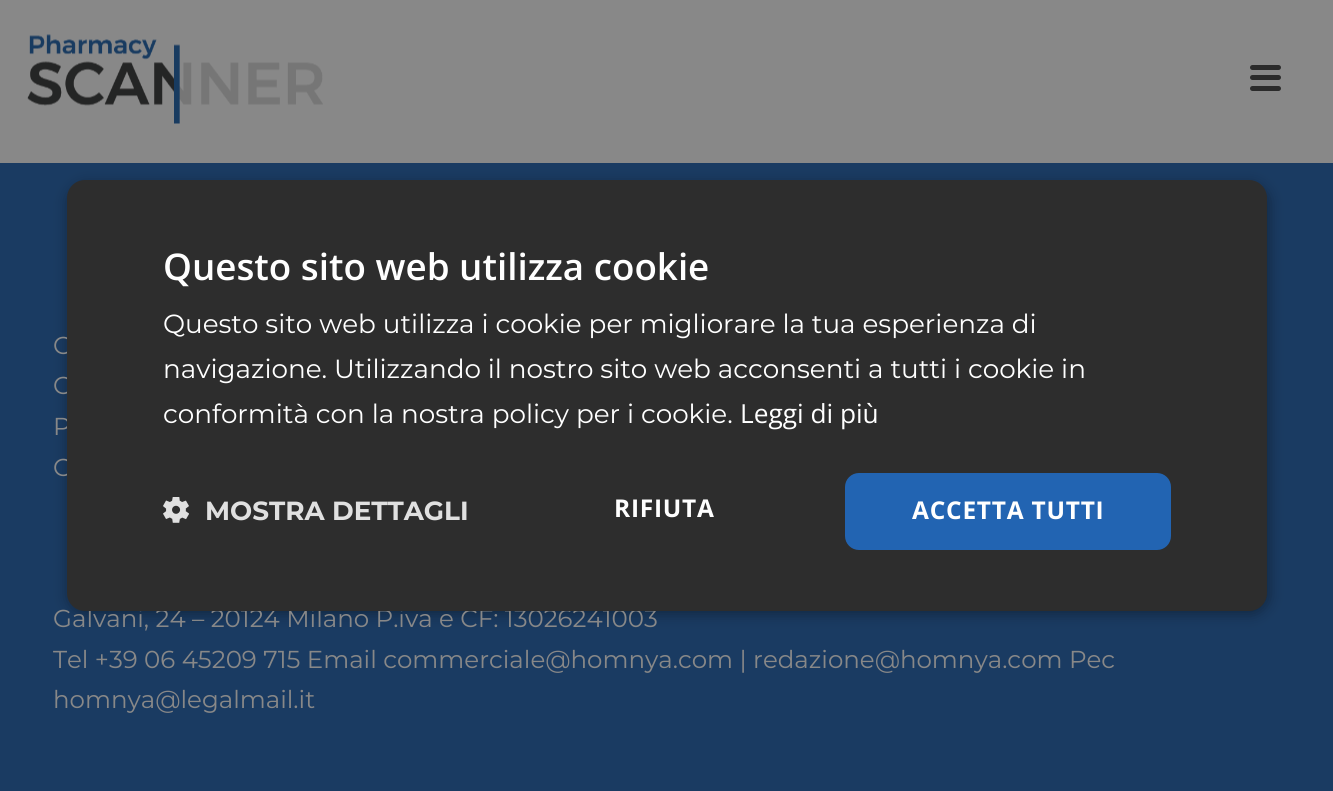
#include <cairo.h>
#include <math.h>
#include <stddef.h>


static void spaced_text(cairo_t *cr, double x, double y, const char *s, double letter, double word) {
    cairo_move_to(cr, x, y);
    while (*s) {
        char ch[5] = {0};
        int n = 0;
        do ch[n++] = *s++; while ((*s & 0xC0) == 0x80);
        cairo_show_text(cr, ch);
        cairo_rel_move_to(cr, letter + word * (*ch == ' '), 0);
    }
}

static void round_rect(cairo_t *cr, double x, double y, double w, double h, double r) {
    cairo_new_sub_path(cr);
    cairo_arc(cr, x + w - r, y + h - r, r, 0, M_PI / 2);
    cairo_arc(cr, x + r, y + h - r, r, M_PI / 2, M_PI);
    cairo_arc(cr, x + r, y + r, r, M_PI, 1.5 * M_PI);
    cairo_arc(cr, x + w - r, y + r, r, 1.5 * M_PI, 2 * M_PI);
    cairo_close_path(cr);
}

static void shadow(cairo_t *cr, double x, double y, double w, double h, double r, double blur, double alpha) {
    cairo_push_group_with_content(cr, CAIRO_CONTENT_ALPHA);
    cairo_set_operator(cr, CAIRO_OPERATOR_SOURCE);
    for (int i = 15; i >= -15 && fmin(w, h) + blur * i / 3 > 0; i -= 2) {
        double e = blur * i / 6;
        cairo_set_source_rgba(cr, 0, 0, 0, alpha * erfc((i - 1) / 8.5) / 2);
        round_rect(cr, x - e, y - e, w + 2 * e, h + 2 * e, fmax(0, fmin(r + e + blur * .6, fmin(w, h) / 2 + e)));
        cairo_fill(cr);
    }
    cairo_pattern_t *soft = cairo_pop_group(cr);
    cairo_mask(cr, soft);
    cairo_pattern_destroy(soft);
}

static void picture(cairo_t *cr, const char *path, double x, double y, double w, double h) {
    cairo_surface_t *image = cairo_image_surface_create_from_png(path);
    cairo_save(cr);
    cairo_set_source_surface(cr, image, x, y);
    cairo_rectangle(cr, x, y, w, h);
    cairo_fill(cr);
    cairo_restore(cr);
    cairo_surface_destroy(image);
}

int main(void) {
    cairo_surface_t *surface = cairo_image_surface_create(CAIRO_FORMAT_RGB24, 1333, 791);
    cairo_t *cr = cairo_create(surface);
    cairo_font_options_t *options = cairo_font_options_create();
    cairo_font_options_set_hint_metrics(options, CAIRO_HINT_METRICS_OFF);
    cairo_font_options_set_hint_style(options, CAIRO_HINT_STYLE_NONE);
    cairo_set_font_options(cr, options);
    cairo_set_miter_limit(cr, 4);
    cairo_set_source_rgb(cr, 0.533, 0.533, 0.533);
    cairo_paint(cr);
    cairo_set_source_rgb(cr, 0.102, 0.231, 0.384);
    cairo_rectangle(cr, 0, 163, 1333, 628);
    cairo_fill(cr);
    cairo_set_source_rgb(cr, 0, 0, 0);
    shadow(cr, 68, 184, 1201, 430, 18, 7, 0.35);
    cairo_select_font_face(cr, "Montserrat", CAIRO_FONT_SLANT_NORMAL, CAIRO_FONT_WEIGHT_NORMAL);
    cairo_set_font_size(cr, 24.5);
    cairo_set_source_rgb(cr, 0.533, 0.533, 0.533);
    cairo_move_to(cr, 53, 354);
    cairo_show_text(cr, "C");
    cairo_move_to(cr, 53, 394);
    cairo_show_text(cr, "C");
    cairo_move_to(cr, 53, 435);
    cairo_show_text(cr, "P");
    cairo_move_to(cr, 53, 476);
    cairo_show_text(cr, "C");
    cairo_move_to(cr, 53, 627);
    cairo_show_text(cr, "Galvani, 24 – 20124 Milano P.iva e CF: 13026241003");
    cairo_set_source_rgb(cr, 0.176, 0.176, 0.176);
    round_rect(cr, 67, 180, 1200, 431, 18);
    cairo_fill(cr);
    cairo_select_font_face(cr, "Open Sans SemiBold", CAIRO_FONT_SLANT_NORMAL, CAIRO_FONT_WEIGHT_NORMAL);
    cairo_set_font_size(cr, 36.75);
    cairo_set_source_rgb(cr, 1, 1, 1);
    cairo_move_to(cr, 163, 280);
    cairo_show_text(cr, "Questo sito web utilizza cookie");
    cairo_select_font_face(cr, "Montserrat", CAIRO_FONT_SLANT_NORMAL, CAIRO_FONT_WEIGHT_NORMAL);
    cairo_set_font_size(cr, 26.25);
    cairo_move_to(cr, 163, 333);
    cairo_show_text(cr, "Questo sito web utilizza i cookie per migliorare la tua esperienza di");
    cairo_move_to(cr, 163, 378);
    cairo_show_text(cr, "navigazione. Utilizzando il nostro sito web acconsenti a tutti i cookie in");
    cairo_move_to(cr, 163, 423);
    cairo_show_text(cr, "conformità con la nostra policy per i cookie.");
    cairo_select_font_face(cr, "Open Sans", CAIRO_FONT_SLANT_NORMAL, CAIRO_FONT_WEIGHT_NORMAL);
    cairo_move_to(cr, 740, 423);
    cairo_show_text(cr, "Leggi di più");
    picture(cr, "img1.png", 163, 497, 26, 26);
    cairo_select_font_face(cr, "Montserrat", CAIRO_FONT_SLANT_NORMAL, CAIRO_FONT_WEIGHT_BOLD);
    cairo_set_source_rgb(cr, 0.878, 0.878, 0.878);
    cairo_move_to(cr, 205, 520);
    cairo_show_text(cr, "MOSTRA DETTAGLI");
    cairo_select_font_face(cr, "Open Sans", CAIRO_FONT_SLANT_NORMAL, CAIRO_FONT_WEIGHT_BOLD);
    cairo_set_font_size(cr, 24.5);
    cairo_set_source_rgb(cr, 1, 1, 1);
    spaced_text(cr, 614, 517, "RIFIUTA", 0.75, 0);
    cairo_set_source_rgb(cr, 0.133, 0.392, 0.698);
    round_rect(cr, 845, 473, 326, 77, 14);
    cairo_fill(cr);
    cairo_set_source_rgb(cr, 1, 1, 1);
    spaced_text(cr, 912, 519, "ACCETTA TUTTI", 0.75, 0);
    picture(cr, "img2.png", 27, 34, 296, 90);
    cairo_set_source_rgb(cr, 0.169, 0.169, 0.169);
    round_rect(cr, 1250, 65, 31, 5, 2.5);
    cairo_fill(cr);
    round_rect(cr, 1250, 75, 31, 5, 2.5);
    cairo_fill(cr);
    round_rect(cr, 1250, 86, 31, 5, 2.5);
    cairo_fill(cr);
    cairo_select_font_face(cr, "Montserrat", CAIRO_FONT_SLANT_NORMAL, CAIRO_FONT_WEIGHT_NORMAL);
    cairo_set_source_rgb(cr, 0.533, 0.533, 0.533);
    cairo_move_to(cr, 53, 668);
    cairo_show_text(cr, "Tel +39 06 45209 715 Email commerciale@homnya.com | redazione@homnya.com Pec");
    cairo_move_to(cr, 53, 708);
    cairo_show_text(cr, "homnya@legalmail.it");
    cairo_surface_write_to_png(surface, "page.png");
    cairo_font_options_destroy(options);
    cairo_destroy(cr);
    cairo_surface_destroy(surface);
    return 0;
}
